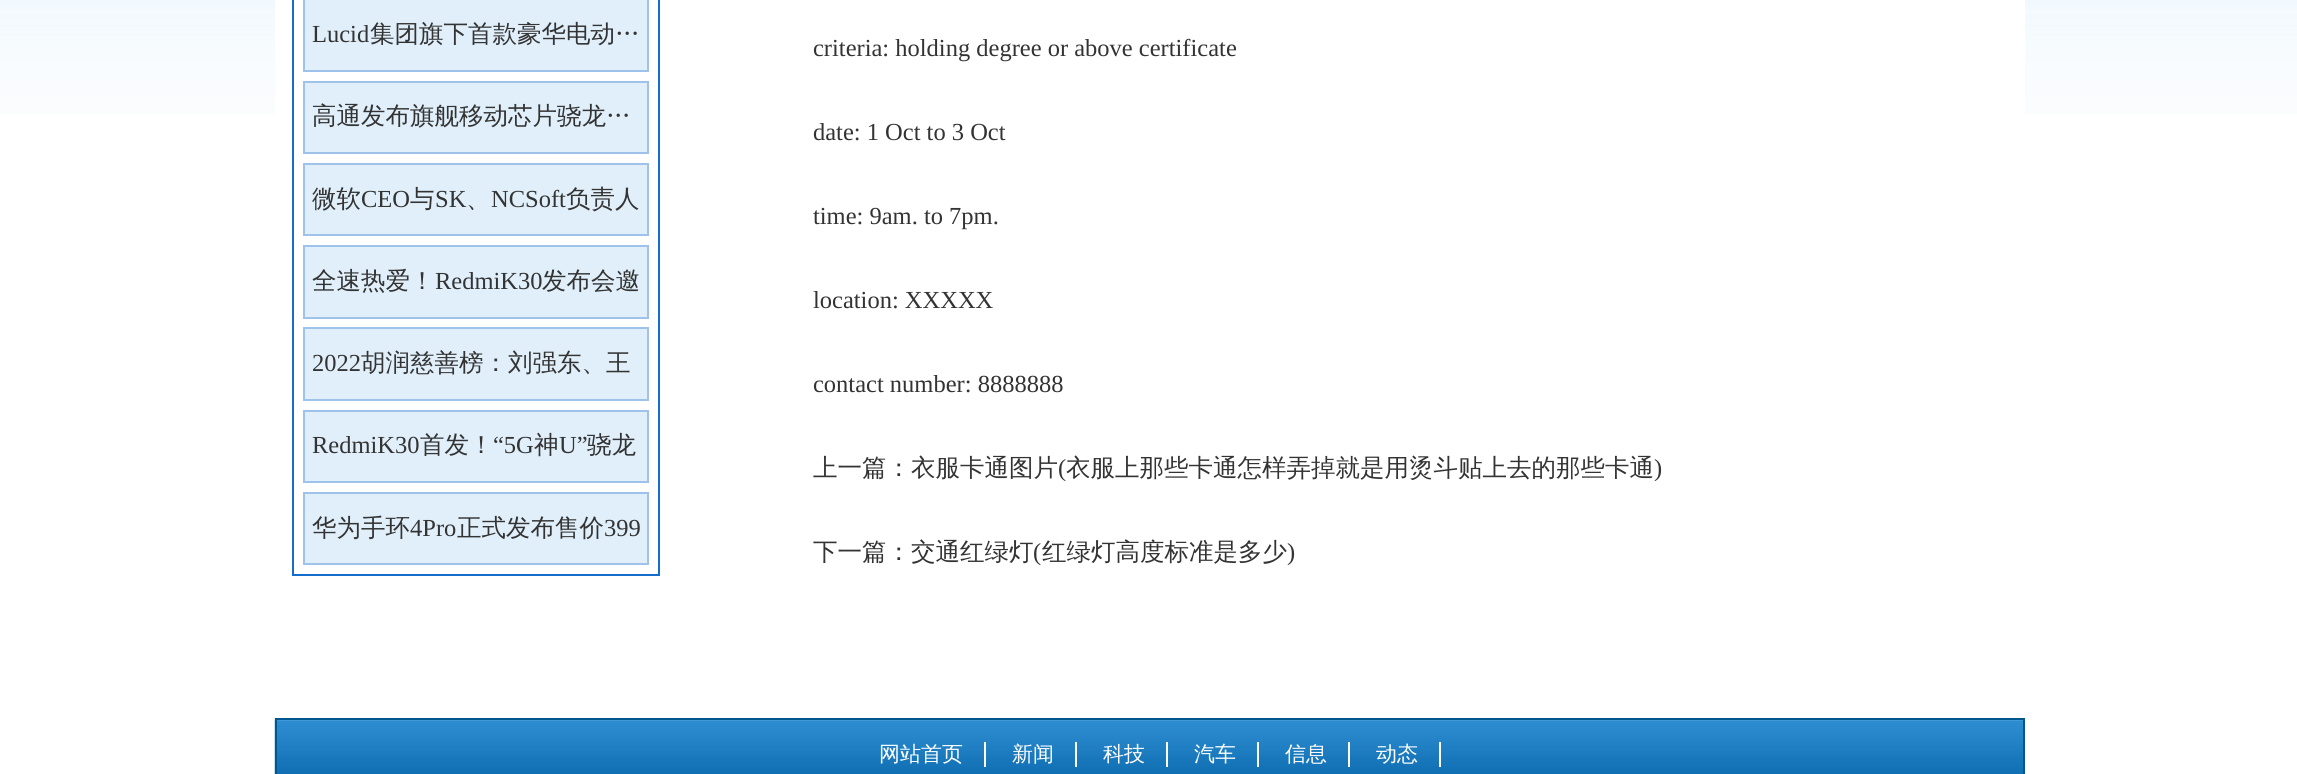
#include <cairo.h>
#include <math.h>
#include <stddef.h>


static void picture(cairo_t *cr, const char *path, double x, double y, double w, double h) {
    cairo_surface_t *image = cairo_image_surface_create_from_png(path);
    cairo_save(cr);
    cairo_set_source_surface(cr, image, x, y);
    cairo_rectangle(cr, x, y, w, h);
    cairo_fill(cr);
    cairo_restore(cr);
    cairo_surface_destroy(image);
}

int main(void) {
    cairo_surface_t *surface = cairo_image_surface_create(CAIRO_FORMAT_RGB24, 2297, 774);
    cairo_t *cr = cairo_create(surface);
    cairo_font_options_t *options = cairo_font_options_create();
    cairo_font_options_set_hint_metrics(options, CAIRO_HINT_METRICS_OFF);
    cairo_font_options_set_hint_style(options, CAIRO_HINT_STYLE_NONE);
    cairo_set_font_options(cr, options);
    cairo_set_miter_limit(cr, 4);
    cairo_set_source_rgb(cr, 1, 1, 1);
    cairo_paint(cr);
    picture(cr, "img1.png", 0, 0, 2297, 114);
    cairo_set_source_rgb(cr, 1, 1, 1);
    cairo_rectangle(cr, 275, 0, 1750, 114);
    cairo_fill(cr);
    cairo_rectangle(cr, 293, -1, 366, 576);
    cairo_set_source_rgb(cr, 0.078, 0.424, 0.808);
    cairo_stroke(cr);
    cairo_set_source_rgb(cr, 0.878, 0.937, 0.98);
    cairo_rectangle(cr, 304, -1, 344, 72);
    cairo_fill_preserve(cr);
    cairo_set_source_rgb(cr, 0.624, 0.761, 0.918);
    cairo_stroke(cr);
    cairo_select_font_face(cr, "Liberation Serif", CAIRO_FONT_SLANT_NORMAL, CAIRO_FONT_WEIGHT_NORMAL);
    cairo_set_font_size(cr, 24.5);
    cairo_set_source_rgb(cr, 0.2, 0.2, 0.2);
    cairo_move_to(cr, 312, 42);
    cairo_show_text(cr, "Lucid");
    cairo_select_font_face(cr, "WenQuanYi Zen Hei Medium", CAIRO_FONT_SLANT_NORMAL, CAIRO_FONT_WEIGHT_NORMAL);
    cairo_move_to(cr, 370, 42);
    cairo_show_text(cr, "集团旗下首款豪华电动…");
    cairo_set_source_rgb(cr, 0.878, 0.937, 0.98);
    cairo_rectangle(cr, 304, 82, 344, 71);
    cairo_fill_preserve(cr);
    cairo_set_source_rgb(cr, 0.624, 0.761, 0.918);
    cairo_stroke(cr);
    cairo_set_source_rgb(cr, 0.2, 0.2, 0.2);
    cairo_move_to(cr, 312, 124);
    cairo_show_text(cr, "高通发布旗舰移动芯片骁龙…");
    cairo_set_source_rgb(cr, 0.878, 0.937, 0.98);
    cairo_rectangle(cr, 304, 164, 344, 71);
    cairo_fill_preserve(cr);
    cairo_set_source_rgb(cr, 0.624, 0.761, 0.918);
    cairo_stroke(cr);
    cairo_set_source_rgb(cr, 0.2, 0.2, 0.2);
    cairo_move_to(cr, 312, 207);
    cairo_show_text(cr, "微软");
    cairo_select_font_face(cr, "Liberation Serif", CAIRO_FONT_SLANT_NORMAL, CAIRO_FONT_WEIGHT_NORMAL);
    cairo_move_to(cr, 361, 207);
    cairo_show_text(cr, "CEO");
    cairo_select_font_face(cr, "WenQuanYi Zen Hei Medium", CAIRO_FONT_SLANT_NORMAL, CAIRO_FONT_WEIGHT_NORMAL);
    cairo_move_to(cr, 410, 207);
    cairo_show_text(cr, "与");
    cairo_select_font_face(cr, "Liberation Serif", CAIRO_FONT_SLANT_NORMAL, CAIRO_FONT_WEIGHT_NORMAL);
    cairo_move_to(cr, 435, 207);
    cairo_show_text(cr, "SK");
    cairo_select_font_face(cr, "WenQuanYi Zen Hei Medium", CAIRO_FONT_SLANT_NORMAL, CAIRO_FONT_WEIGHT_NORMAL);
    cairo_move_to(cr, 466, 207);
    cairo_show_text(cr, "、");
    cairo_select_font_face(cr, "Liberation Serif", CAIRO_FONT_SLANT_NORMAL, CAIRO_FONT_WEIGHT_NORMAL);
    cairo_move_to(cr, 491, 207);
    cairo_show_text(cr, "NCSoft");
    cairo_select_font_face(cr, "WenQuanYi Zen Hei Medium", CAIRO_FONT_SLANT_NORMAL, CAIRO_FONT_WEIGHT_NORMAL);
    cairo_move_to(cr, 566, 207);
    cairo_show_text(cr, "负责人");
    cairo_set_source_rgb(cr, 0.878, 0.937, 0.98);
    cairo_rectangle(cr, 304, 246, 344, 72);
    cairo_fill_preserve(cr);
    cairo_set_source_rgb(cr, 0.624, 0.761, 0.918);
    cairo_stroke(cr);
    cairo_set_source_rgb(cr, 0.2, 0.2, 0.2);
    cairo_move_to(cr, 312, 289);
    cairo_show_text(cr, "全速热爱！");
    cairo_select_font_face(cr, "Liberation Serif", CAIRO_FONT_SLANT_NORMAL, CAIRO_FONT_WEIGHT_NORMAL);
    cairo_move_to(cr, 435, 289);
    cairo_show_text(cr, "RedmiK30");
    cairo_select_font_face(cr, "WenQuanYi Zen Hei Medium", CAIRO_FONT_SLANT_NORMAL, CAIRO_FONT_WEIGHT_NORMAL);
    cairo_move_to(cr, 542, 289);
    cairo_show_text(cr, "发布会邀");
    cairo_set_source_rgb(cr, 0.878, 0.937, 0.98);
    cairo_rectangle(cr, 304, 328, 344, 72);
    cairo_fill_preserve(cr);
    cairo_set_source_rgb(cr, 0.624, 0.761, 0.918);
    cairo_stroke(cr);
    cairo_select_font_face(cr, "Liberation Serif", CAIRO_FONT_SLANT_NORMAL, CAIRO_FONT_WEIGHT_NORMAL);
    cairo_set_source_rgb(cr, 0.2, 0.2, 0.2);
    cairo_move_to(cr, 312, 371);
    cairo_show_text(cr, "2022");
    cairo_select_font_face(cr, "WenQuanYi Zen Hei Medium", CAIRO_FONT_SLANT_NORMAL, CAIRO_FONT_WEIGHT_NORMAL);
    cairo_move_to(cr, 361, 371);
    cairo_show_text(cr, "胡润慈善榜：刘强东、王");
    cairo_set_source_rgb(cr, 0.878, 0.937, 0.98);
    cairo_rectangle(cr, 304, 411, 344, 71);
    cairo_fill_preserve(cr);
    cairo_set_source_rgb(cr, 0.624, 0.761, 0.918);
    cairo_stroke(cr);
    cairo_select_font_face(cr, "Liberation Serif", CAIRO_FONT_SLANT_NORMAL, CAIRO_FONT_WEIGHT_NORMAL);
    cairo_set_source_rgb(cr, 0.2, 0.2, 0.2);
    cairo_move_to(cr, 312, 453);
    cairo_show_text(cr, "RedmiK30");
    cairo_select_font_face(cr, "WenQuanYi Zen Hei Medium", CAIRO_FONT_SLANT_NORMAL, CAIRO_FONT_WEIGHT_NORMAL);
    cairo_move_to(cr, 420, 453);
    cairo_show_text(cr, "首发！");
    cairo_select_font_face(cr, "Liberation Serif", CAIRO_FONT_SLANT_NORMAL, CAIRO_FONT_WEIGHT_NORMAL);
    cairo_move_to(cr, 493, 453);
    cairo_show_text(cr, "“5G");
    cairo_select_font_face(cr, "WenQuanYi Zen Hei Medium", CAIRO_FONT_SLANT_NORMAL, CAIRO_FONT_WEIGHT_NORMAL);
    cairo_move_to(cr, 534, 453);
    cairo_show_text(cr, "神");
    cairo_select_font_face(cr, "Liberation Serif", CAIRO_FONT_SLANT_NORMAL, CAIRO_FONT_WEIGHT_NORMAL);
    cairo_move_to(cr, 559, 453);
    cairo_show_text(cr, "U”");
    cairo_select_font_face(cr, "WenQuanYi Zen Hei Medium", CAIRO_FONT_SLANT_NORMAL, CAIRO_FONT_WEIGHT_NORMAL);
    cairo_move_to(cr, 587, 453);
    cairo_show_text(cr, "骁龙");
    cairo_set_source_rgb(cr, 0.878, 0.937, 0.98);
    cairo_rectangle(cr, 304, 493, 344, 71);
    cairo_fill_preserve(cr);
    cairo_set_source_rgb(cr, 0.624, 0.761, 0.918);
    cairo_stroke(cr);
    cairo_set_source_rgb(cr, 0.2, 0.2, 0.2);
    cairo_move_to(cr, 312, 536);
    cairo_show_text(cr, "华为手环");
    cairo_select_font_face(cr, "Liberation Serif", CAIRO_FONT_SLANT_NORMAL, CAIRO_FONT_WEIGHT_NORMAL);
    cairo_move_to(cr, 410, 536);
    cairo_show_text(cr, "4Pro");
    cairo_select_font_face(cr, "WenQuanYi Zen Hei Medium", CAIRO_FONT_SLANT_NORMAL, CAIRO_FONT_WEIGHT_NORMAL);
    cairo_move_to(cr, 457, 536);
    cairo_show_text(cr, "正式发布售价");
    cairo_select_font_face(cr, "Liberation Serif", CAIRO_FONT_SLANT_NORMAL, CAIRO_FONT_WEIGHT_NORMAL);
    cairo_move_to(cr, 604, 536);
    cairo_show_text(cr, "399");
    cairo_move_to(cr, 813, 56);
    cairo_show_text(cr, "criteria: holding degree or above certificate");
    cairo_move_to(cr, 813, 140);
    cairo_show_text(cr, "date: 1 Oct to 3 Oct");
    cairo_move_to(cr, 813, 224);
    cairo_show_text(cr, "time: 9am. to 7pm.");
    cairo_move_to(cr, 813, 308);
    cairo_show_text(cr, "location: XXXXX");
    cairo_move_to(cr, 813, 392);
    cairo_show_text(cr, "contact number: 8888888");
    cairo_select_font_face(cr, "WenQuanYi Zen Hei Medium", CAIRO_FONT_SLANT_NORMAL, CAIRO_FONT_WEIGHT_NORMAL);
    cairo_move_to(cr, 813, 476);
    cairo_show_text(cr, "上一篇：衣服卡通图片");
    cairo_select_font_face(cr, "Liberation Serif", CAIRO_FONT_SLANT_NORMAL, CAIRO_FONT_WEIGHT_NORMAL);
    cairo_move_to(cr, 1058, 476);
    cairo_show_text(cr, "(");
    cairo_select_font_face(cr, "WenQuanYi Zen Hei Medium", CAIRO_FONT_SLANT_NORMAL, CAIRO_FONT_WEIGHT_NORMAL);
    cairo_move_to(cr, 1066, 476);
    cairo_show_text(cr, "衣服上那些卡通怎样弄掉就是用烫斗贴上去的那些卡通");
    cairo_select_font_face(cr, "Liberation Serif", CAIRO_FONT_SLANT_NORMAL, CAIRO_FONT_WEIGHT_NORMAL);
    cairo_move_to(cr, 1654, 476);
    cairo_show_text(cr, ")");
    cairo_select_font_face(cr, "WenQuanYi Zen Hei Medium", CAIRO_FONT_SLANT_NORMAL, CAIRO_FONT_WEIGHT_NORMAL);
    cairo_move_to(cr, 813, 560);
    cairo_show_text(cr, "下一篇：交通红绿灯");
    cairo_select_font_face(cr, "Liberation Serif", CAIRO_FONT_SLANT_NORMAL, CAIRO_FONT_WEIGHT_NORMAL);
    cairo_move_to(cr, 1033, 560);
    cairo_show_text(cr, "(");
    cairo_select_font_face(cr, "WenQuanYi Zen Hei Medium", CAIRO_FONT_SLANT_NORMAL, CAIRO_FONT_WEIGHT_NORMAL);
    cairo_move_to(cr, 1042, 560);
    cairo_show_text(cr, "红绿灯高度标准是多少");
    cairo_select_font_face(cr, "Liberation Serif", CAIRO_FONT_SLANT_NORMAL, CAIRO_FONT_WEIGHT_NORMAL);
    cairo_move_to(cr, 1287, 560);
    cairo_show_text(cr, ")");
    picture(cr, "img2.png", 274, 718, 1749, 56);
    cairo_rectangle(cr, 276, 719, 1748, 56);
    cairo_set_source_rgb(cr, 0, 0.341, 0.557);
    cairo_stroke(cr);
    cairo_select_font_face(cr, "WenQuanYi Zen Hei Medium", CAIRO_FONT_SLANT_NORMAL, CAIRO_FONT_WEIGHT_NORMAL);
    cairo_set_font_size(cr, 21);
    cairo_set_source_rgb(cr, 1, 1, 1);
    cairo_move_to(cr, 879, 761);
    cairo_show_text(cr, "网站首页");
    cairo_rectangle(cr, 984, 742, 2, 25);
    cairo_fill(cr);
    cairo_move_to(cr, 1012, 761);
    cairo_show_text(cr, "新闻");
    cairo_rectangle(cr, 1075, 742, 2, 25);
    cairo_fill(cr);
    cairo_move_to(cr, 1103, 761);
    cairo_show_text(cr, "科技");
    cairo_rectangle(cr, 1166, 742, 2, 25);
    cairo_fill(cr);
    cairo_move_to(cr, 1194, 761);
    cairo_show_text(cr, "汽车");
    cairo_rectangle(cr, 1257, 742, 2, 25);
    cairo_fill(cr);
    cairo_move_to(cr, 1285, 761);
    cairo_show_text(cr, "信息");
    cairo_rectangle(cr, 1348, 742, 2, 25);
    cairo_fill(cr);
    cairo_move_to(cr, 1376, 761);
    cairo_show_text(cr, "动态");
    cairo_rectangle(cr, 1439, 742, 2, 25);
    cairo_fill(cr);
    cairo_surface_write_to_png(surface, "page.png");
    cairo_font_options_destroy(options);
    cairo_destroy(cr);
    cairo_surface_destroy(surface);
    return 0;
}
